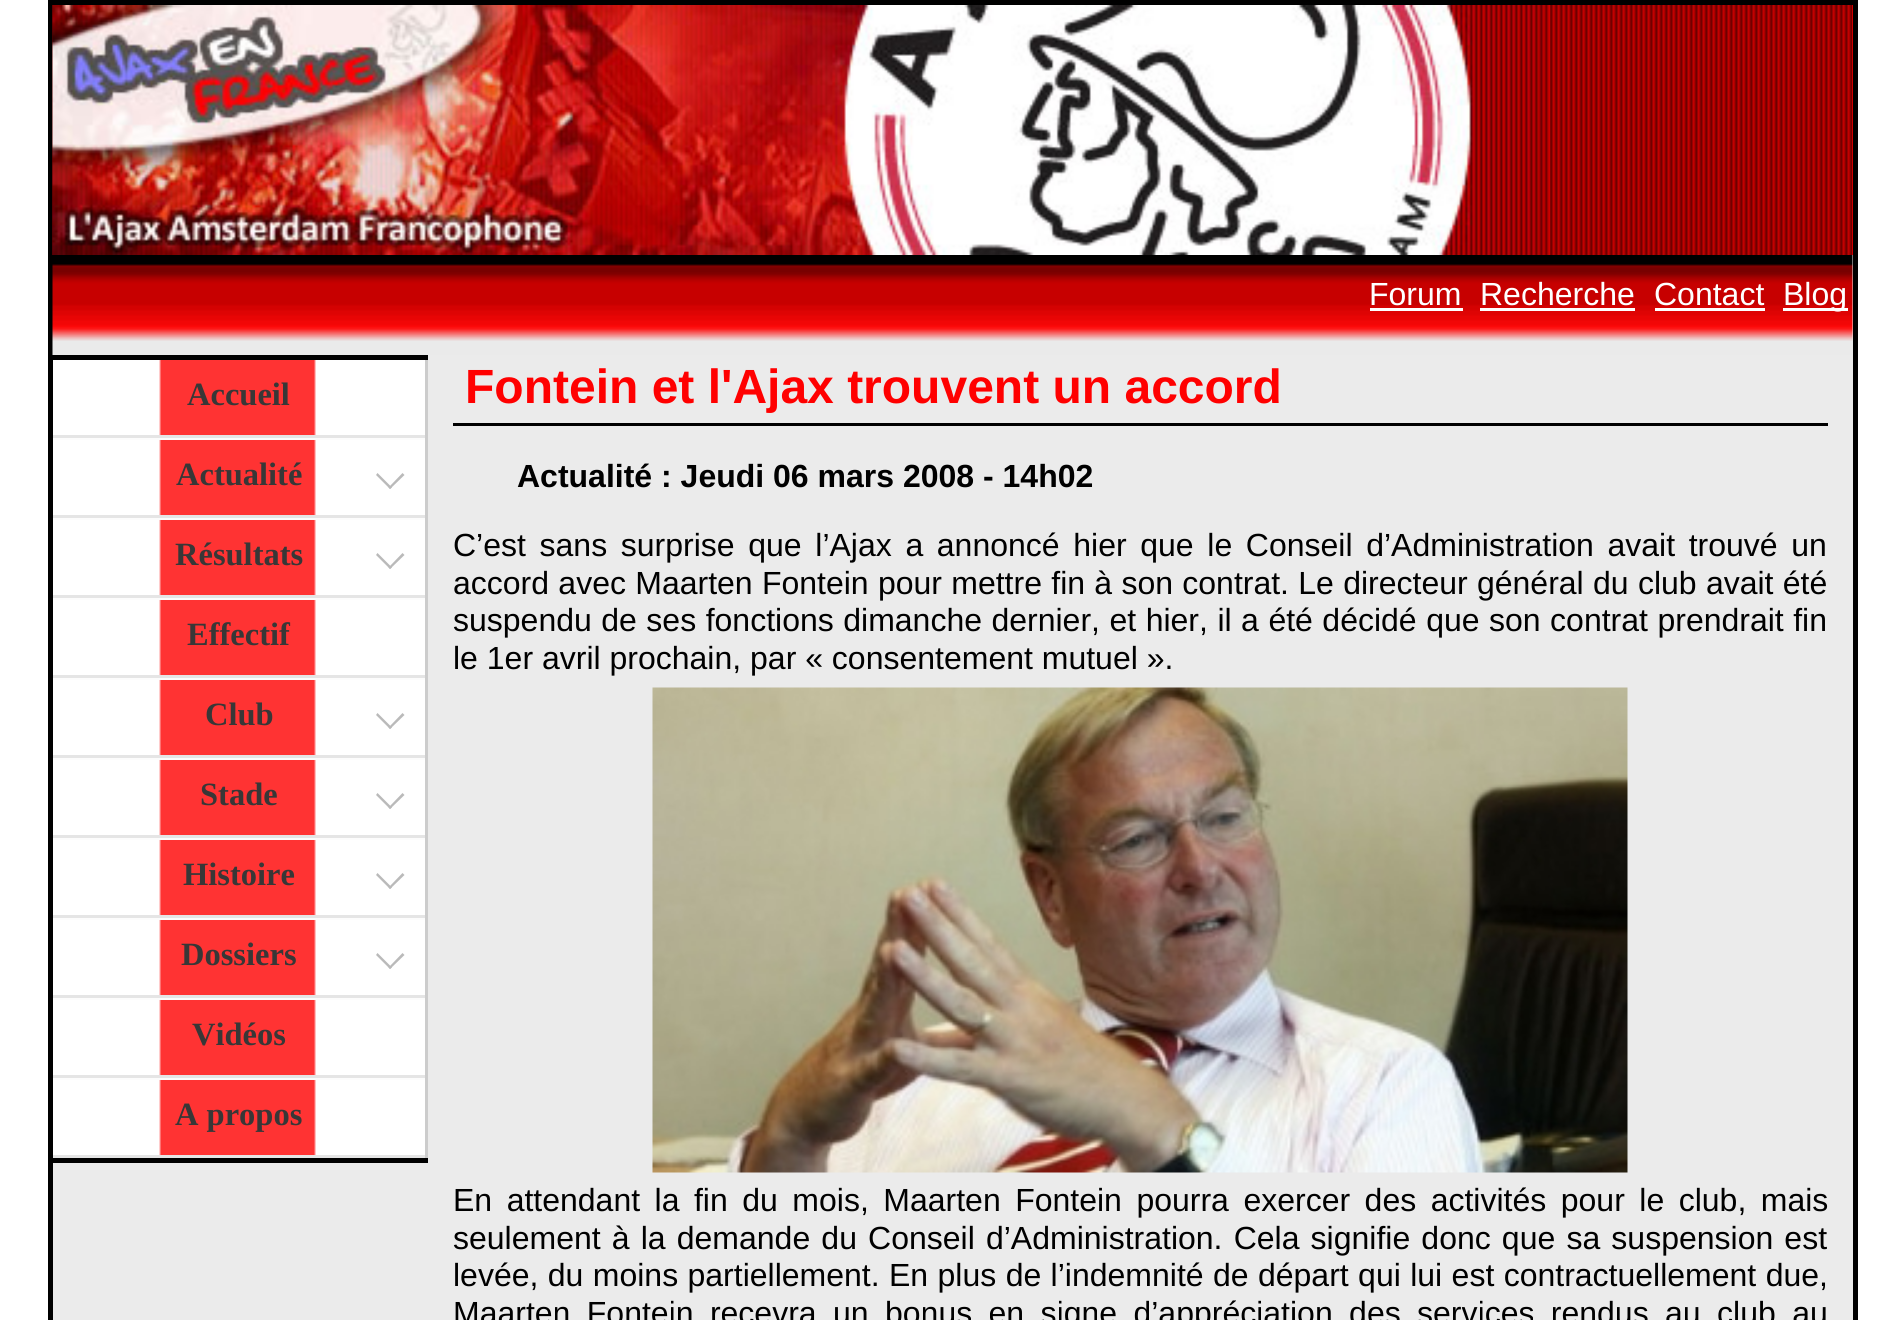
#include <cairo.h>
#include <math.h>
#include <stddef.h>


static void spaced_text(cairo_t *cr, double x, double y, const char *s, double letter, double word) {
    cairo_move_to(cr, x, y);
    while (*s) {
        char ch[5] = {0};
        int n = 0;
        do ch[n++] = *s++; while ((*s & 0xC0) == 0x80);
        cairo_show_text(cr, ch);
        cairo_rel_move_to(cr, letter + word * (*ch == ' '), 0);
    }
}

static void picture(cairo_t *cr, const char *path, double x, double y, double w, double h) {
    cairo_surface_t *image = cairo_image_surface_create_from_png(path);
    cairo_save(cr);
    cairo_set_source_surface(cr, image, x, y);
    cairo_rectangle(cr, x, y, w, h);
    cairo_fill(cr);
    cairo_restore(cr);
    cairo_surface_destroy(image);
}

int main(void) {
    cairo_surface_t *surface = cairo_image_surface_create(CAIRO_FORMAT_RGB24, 1903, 1320);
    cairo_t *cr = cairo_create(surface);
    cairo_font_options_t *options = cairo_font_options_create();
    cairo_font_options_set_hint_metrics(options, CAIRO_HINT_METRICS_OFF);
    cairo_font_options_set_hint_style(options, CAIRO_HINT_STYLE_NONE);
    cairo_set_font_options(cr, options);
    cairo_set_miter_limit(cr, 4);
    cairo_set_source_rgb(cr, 1, 1, 1);
    cairo_paint(cr);
    cairo_set_source_rgb(cr, 0.918, 0.918, 0.918);
    cairo_rectangle(cr, 53, 255, 1800, 1065);
    cairo_fill(cr);
    cairo_rectangle(cr, 50.5, 2.5, 1805, 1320);
    cairo_set_source_rgb(cr, 0, 0, 0);
    cairo_set_line_width(cr, 5);
    cairo_stroke(cr);
    cairo_set_source_rgb(cr, 1, 0, 0);
    cairo_rectangle(cr, 1852, 5, 1, 250);
    cairo_fill(cr);
    picture(cr, "img1.png", 52, 5, 1801, 250);
    picture(cr, "img2.png", 52, 5, 1498, 250);
    picture(cr, "img3.png", 52, 255, 1801, 100);
    cairo_select_font_face(cr, "Liberation Sans", CAIRO_FONT_SLANT_NORMAL, CAIRO_FONT_WEIGHT_NORMAL);
    cairo_set_font_size(cr, 32);
    cairo_set_source_rgb(cr, 1, 1, 1);
    cairo_move_to(cr, 1369, 305);
    cairo_show_text(cr, "Forum");
    cairo_rectangle(cr, 1370, 308, 93, 3);
    cairo_fill(cr);
    cairo_move_to(cr, 1480, 305);
    cairo_show_text(cr, "Recherche");
    cairo_rectangle(cr, 1480, 308, 155, 3);
    cairo_fill(cr);
    cairo_move_to(cr, 1654, 305);
    cairo_show_text(cr, "Contact");
    cairo_rectangle(cr, 1655, 308, 110, 3);
    cairo_fill(cr);
    cairo_rectangle(cr, 1783, 308, 65, 3);
    cairo_fill(cr);
    cairo_move_to(cr, 1783, 305);
    cairo_show_text(cr, "Blog");
    cairo_set_source_rgb(cr, 0, 0, 0);
    cairo_rectangle(cr, 53, 355, 375, 5);
    cairo_fill(cr);
    cairo_rectangle(cr, 53, 1158, 375, 5);
    cairo_fill(cr);
    cairo_set_source_rgb(cr, 0.8, 0.8, 0.8);
    cairo_rectangle(cr, 425, 360, 3, 798);
    cairo_fill(cr);
    cairo_set_source_rgb(cr, 0.898, 0.898, 0.898);
    cairo_rectangle(cr, 53, 435, 372, 3);
    cairo_fill(cr);
    cairo_set_source_rgb(cr, 1, 1, 1);
    cairo_rectangle(cr, 53, 360, 372, 75);
    cairo_fill(cr);
    picture(cr, "img4.png", 159, 360, 157, 75);
    cairo_select_font_face(cr, "Liberation Serif", CAIRO_FONT_SLANT_NORMAL, CAIRO_FONT_WEIGHT_BOLD);
    cairo_set_font_size(cr, 32.5);
    cairo_set_source_rgb(cr, 0.22, 0.216, 0.216);
    cairo_move_to(cr, 187, 405);
    cairo_show_text(cr, "Accueil");
    cairo_set_source_rgb(cr, 0.988, 0.988, 0.988);
    cairo_rectangle(cr, 53, 438, 372, 2);
    cairo_fill(cr);
    cairo_set_source_rgb(cr, 0.898, 0.898, 0.898);
    cairo_rectangle(cr, 53, 515, 372, 3);
    cairo_fill(cr);
    cairo_set_source_rgb(cr, 1, 1, 1);
    cairo_rectangle(cr, 53, 440, 372, 75);
    cairo_fill(cr);
    picture(cr, "img4.png", 159, 440, 157, 75);
    cairo_set_source_rgb(cr, 0.22, 0.216, 0.216);
    cairo_move_to(cr, 176, 485);
    cairo_show_text(cr, "Actualité");
    cairo_set_source_rgb(cr, 0.729, 0.729, 0.729);
    cairo_new_path(cr);
    cairo_move_to(cr, 402.5, 473);
    cairo_line_to(cr, 404.5, 475);
    cairo_line_to(cr, 390, 489);
    cairo_line_to(cr, 388.5, 487.5);
    cairo_close_path(cr);
    cairo_fill(cr);
    cairo_new_path(cr);
    cairo_move_to(cr, 377.5, 473);
    cairo_line_to(cr, 392, 487.5);
    cairo_line_to(cr, 390, 489);
    cairo_line_to(cr, 376, 475);
    cairo_close_path(cr);
    cairo_fill(cr);
    cairo_set_source_rgb(cr, 0.988, 0.988, 0.988);
    cairo_rectangle(cr, 53, 518, 372, 2);
    cairo_fill(cr);
    cairo_set_source_rgb(cr, 0.898, 0.898, 0.898);
    cairo_rectangle(cr, 53, 595, 372, 3);
    cairo_fill(cr);
    cairo_set_source_rgb(cr, 1, 1, 1);
    cairo_rectangle(cr, 53, 520, 372, 75);
    cairo_fill(cr);
    picture(cr, "img4.png", 159, 520, 157, 75);
    cairo_set_source_rgb(cr, 0.22, 0.216, 0.216);
    cairo_move_to(cr, 175, 565);
    cairo_show_text(cr, "Résultats");
    cairo_set_source_rgb(cr, 0.729, 0.729, 0.729);
    cairo_new_path(cr);
    cairo_move_to(cr, 402.5, 553);
    cairo_line_to(cr, 404.5, 555);
    cairo_line_to(cr, 390, 569);
    cairo_line_to(cr, 388.5, 567.5);
    cairo_close_path(cr);
    cairo_fill(cr);
    cairo_new_path(cr);
    cairo_move_to(cr, 377.5, 553);
    cairo_line_to(cr, 392, 567.5);
    cairo_line_to(cr, 390, 569);
    cairo_line_to(cr, 376, 555);
    cairo_close_path(cr);
    cairo_fill(cr);
    cairo_set_source_rgb(cr, 0.988, 0.988, 0.988);
    cairo_rectangle(cr, 53, 598, 372, 2);
    cairo_fill(cr);
    cairo_set_source_rgb(cr, 0.898, 0.898, 0.898);
    cairo_rectangle(cr, 53, 675, 372, 3);
    cairo_fill(cr);
    cairo_set_source_rgb(cr, 1, 1, 1);
    cairo_rectangle(cr, 53, 600, 372, 75);
    cairo_fill(cr);
    picture(cr, "img4.png", 159, 600, 157, 75);
    cairo_set_source_rgb(cr, 0.22, 0.216, 0.216);
    cairo_move_to(cr, 187, 645);
    cairo_show_text(cr, "Effectif");
    cairo_set_source_rgb(cr, 0.988, 0.988, 0.988);
    cairo_rectangle(cr, 53, 678, 372, 2);
    cairo_fill(cr);
    cairo_set_source_rgb(cr, 0.898, 0.898, 0.898);
    cairo_rectangle(cr, 53, 755, 372, 3);
    cairo_fill(cr);
    cairo_set_source_rgb(cr, 1, 1, 1);
    cairo_rectangle(cr, 53, 680, 372, 75);
    cairo_fill(cr);
    picture(cr, "img4.png", 159, 680, 157, 75);
    cairo_set_source_rgb(cr, 0.22, 0.216, 0.216);
    cairo_move_to(cr, 205, 725);
    cairo_show_text(cr, "Club");
    cairo_set_source_rgb(cr, 0.729, 0.729, 0.729);
    cairo_new_path(cr);
    cairo_move_to(cr, 402.5, 713);
    cairo_line_to(cr, 404.5, 715);
    cairo_line_to(cr, 390, 729);
    cairo_line_to(cr, 388.5, 727.5);
    cairo_close_path(cr);
    cairo_fill(cr);
    cairo_new_path(cr);
    cairo_move_to(cr, 377.5, 713);
    cairo_line_to(cr, 392, 727.5);
    cairo_line_to(cr, 390, 729);
    cairo_line_to(cr, 376, 715);
    cairo_close_path(cr);
    cairo_fill(cr);
    cairo_set_source_rgb(cr, 0.988, 0.988, 0.988);
    cairo_rectangle(cr, 53, 758, 372, 2);
    cairo_fill(cr);
    cairo_set_source_rgb(cr, 0.898, 0.898, 0.898);
    cairo_rectangle(cr, 53, 835, 372, 3);
    cairo_fill(cr);
    cairo_set_source_rgb(cr, 1, 1, 1);
    cairo_rectangle(cr, 53, 760, 372, 75);
    cairo_fill(cr);
    picture(cr, "img4.png", 159, 760, 157, 75);
    cairo_set_source_rgb(cr, 0.22, 0.216, 0.216);
    cairo_move_to(cr, 200, 805);
    cairo_show_text(cr, "Stade");
    cairo_set_source_rgb(cr, 0.729, 0.729, 0.729);
    cairo_new_path(cr);
    cairo_move_to(cr, 402.5, 793);
    cairo_line_to(cr, 404.5, 795);
    cairo_line_to(cr, 390, 809);
    cairo_line_to(cr, 388.5, 807.5);
    cairo_close_path(cr);
    cairo_fill(cr);
    cairo_new_path(cr);
    cairo_move_to(cr, 377.5, 793);
    cairo_line_to(cr, 392, 807.5);
    cairo_line_to(cr, 390, 809);
    cairo_line_to(cr, 376, 795);
    cairo_close_path(cr);
    cairo_fill(cr);
    cairo_set_source_rgb(cr, 0.988, 0.988, 0.988);
    cairo_rectangle(cr, 53, 838, 372, 2);
    cairo_fill(cr);
    cairo_set_source_rgb(cr, 0.898, 0.898, 0.898);
    cairo_rectangle(cr, 53, 915, 372, 3);
    cairo_fill(cr);
    cairo_set_source_rgb(cr, 1, 1, 1);
    cairo_rectangle(cr, 53, 840, 372, 75);
    cairo_fill(cr);
    picture(cr, "img4.png", 159, 840, 157, 75);
    cairo_set_source_rgb(cr, 0.22, 0.216, 0.216);
    cairo_move_to(cr, 183, 885);
    cairo_show_text(cr, "Histoire");
    cairo_set_source_rgb(cr, 0.729, 0.729, 0.729);
    cairo_new_path(cr);
    cairo_move_to(cr, 402.5, 873);
    cairo_line_to(cr, 404.5, 875);
    cairo_line_to(cr, 390, 889);
    cairo_line_to(cr, 388.5, 887.5);
    cairo_close_path(cr);
    cairo_fill(cr);
    cairo_new_path(cr);
    cairo_move_to(cr, 377.5, 873);
    cairo_line_to(cr, 392, 887.5);
    cairo_line_to(cr, 390, 889);
    cairo_line_to(cr, 376, 875);
    cairo_close_path(cr);
    cairo_fill(cr);
    cairo_set_source_rgb(cr, 0.988, 0.988, 0.988);
    cairo_rectangle(cr, 53, 918, 372, 2);
    cairo_fill(cr);
    cairo_set_source_rgb(cr, 0.898, 0.898, 0.898);
    cairo_rectangle(cr, 53, 995, 372, 3);
    cairo_fill(cr);
    cairo_set_source_rgb(cr, 1, 1, 1);
    cairo_rectangle(cr, 53, 920, 372, 75);
    cairo_fill(cr);
    picture(cr, "img4.png", 159, 920, 157, 75);
    cairo_set_source_rgb(cr, 0.22, 0.216, 0.216);
    cairo_move_to(cr, 181, 965);
    cairo_show_text(cr, "Dossiers");
    cairo_set_source_rgb(cr, 0.729, 0.729, 0.729);
    cairo_new_path(cr);
    cairo_move_to(cr, 402.5, 953);
    cairo_line_to(cr, 404.5, 955);
    cairo_line_to(cr, 390, 969);
    cairo_line_to(cr, 388.5, 967.5);
    cairo_close_path(cr);
    cairo_fill(cr);
    cairo_new_path(cr);
    cairo_move_to(cr, 377.5, 953);
    cairo_line_to(cr, 392, 967.5);
    cairo_line_to(cr, 390, 969);
    cairo_line_to(cr, 376, 955);
    cairo_close_path(cr);
    cairo_fill(cr);
    cairo_set_source_rgb(cr, 0.988, 0.988, 0.988);
    cairo_rectangle(cr, 53, 998, 372, 2);
    cairo_fill(cr);
    cairo_set_source_rgb(cr, 0.898, 0.898, 0.898);
    cairo_rectangle(cr, 53, 1075, 372, 3);
    cairo_fill(cr);
    cairo_set_source_rgb(cr, 1, 1, 1);
    cairo_rectangle(cr, 53, 1000, 372, 75);
    cairo_fill(cr);
    picture(cr, "img4.png", 159, 1000, 157, 75);
    cairo_set_source_rgb(cr, 0.22, 0.216, 0.216);
    cairo_move_to(cr, 192, 1045);
    cairo_show_text(cr, "Vidéos");
    cairo_set_source_rgb(cr, 0.988, 0.988, 0.988);
    cairo_rectangle(cr, 53, 1078, 372, 2);
    cairo_fill(cr);
    cairo_set_source_rgb(cr, 0.898, 0.898, 0.898);
    cairo_rectangle(cr, 53, 1155, 372, 3);
    cairo_fill(cr);
    cairo_set_source_rgb(cr, 1, 1, 1);
    cairo_rectangle(cr, 53, 1080, 372, 75);
    cairo_fill(cr);
    picture(cr, "img4.png", 159, 1080, 157, 75);
    cairo_set_source_rgb(cr, 0.22, 0.216, 0.216);
    cairo_move_to(cr, 175, 1125);
    cairo_show_text(cr, "A propos");
    cairo_set_source_rgb(cr, 0, 0, 0);
    cairo_rectangle(cr, 453, 423, 1375, 3);
    cairo_fill(cr);
    cairo_select_font_face(cr, "Liberation Sans", CAIRO_FONT_SLANT_NORMAL, CAIRO_FONT_WEIGHT_BOLD);
    cairo_set_font_size(cr, 48);
    cairo_set_source_rgb(cr, 1, 0, 0);
    cairo_move_to(cr, 465, 403);
    cairo_show_text(cr, "Fontein et l'Ajax trouvent un accord");
    cairo_set_font_size(cr, 32);
    cairo_set_source_rgb(cr, 0, 0, 0);
    cairo_move_to(cr, 517, 487);
    cairo_show_text(cr, "Actualité : Jeudi 06 mars 2008 - 14h02");
    cairo_select_font_face(cr, "Liberation Sans", CAIRO_FONT_SLANT_NORMAL, CAIRO_FONT_WEIGHT_NORMAL);
    spaced_text(cr, 453, 556, "C’est sans surprise que l’Ajax a annoncé hier que le Conseil d’Administration avait trouvé un", 0, 4.75);
    spaced_text(cr, 453, 594, "accord avec Maarten Fontein pour mettre fin à son contrat. Le directeur général du club avait été", 0, 0.4);
    spaced_text(cr, 453, 631, "suspendu de ses fonctions dimanche dernier, et hier, il a été décidé que son contrat prendrait fin", 0, 0.6);
    cairo_move_to(cr, 453, 669);
    cairo_show_text(cr, "le 1er avril prochain, par « consentement mutuel ».");
    picture(cr, "img5.png", 652, 687, 976, 486);
    spaced_text(cr, 453, 1211, "En attendant la fin du mois, Maarten Fontein pourra exercer des activités pour le club, mais", 0, 5.6);
    spaced_text(cr, 453, 1249, "seulement à la demande du Conseil d’Administration. Cela signifie donc que sa suspension est", 0, 2.25);
    spaced_text(cr, 453, 1286, "levée, du moins partiellement. En plus de l’indemnité de départ qui lui est contractuellement due,", 0, 0.5);
    spaced_text(cr, 453, 1324, "Maarten Fontein recevra un bonus en signe d’appréciation des services rendus au club au", 0, 7.5);
    cairo_surface_write_to_png(surface, "page.png");
    cairo_font_options_destroy(options);
    cairo_destroy(cr);
    cairo_surface_destroy(surface);
    return 0;
}
